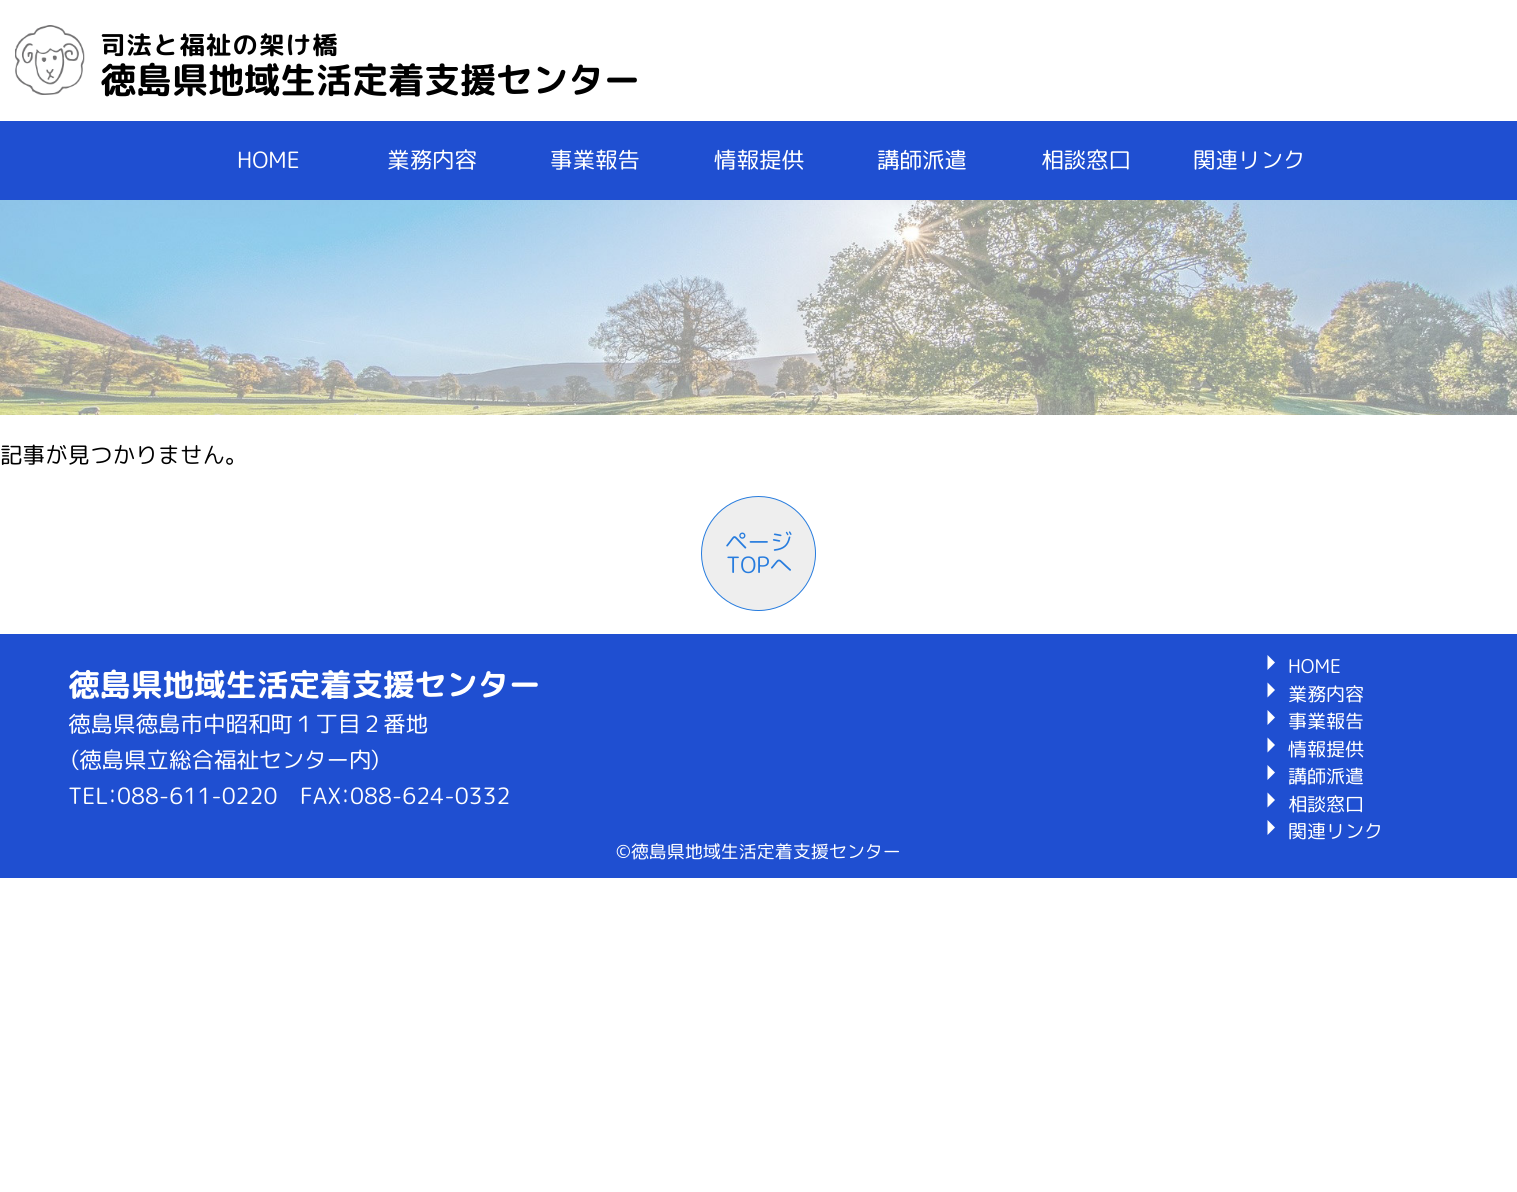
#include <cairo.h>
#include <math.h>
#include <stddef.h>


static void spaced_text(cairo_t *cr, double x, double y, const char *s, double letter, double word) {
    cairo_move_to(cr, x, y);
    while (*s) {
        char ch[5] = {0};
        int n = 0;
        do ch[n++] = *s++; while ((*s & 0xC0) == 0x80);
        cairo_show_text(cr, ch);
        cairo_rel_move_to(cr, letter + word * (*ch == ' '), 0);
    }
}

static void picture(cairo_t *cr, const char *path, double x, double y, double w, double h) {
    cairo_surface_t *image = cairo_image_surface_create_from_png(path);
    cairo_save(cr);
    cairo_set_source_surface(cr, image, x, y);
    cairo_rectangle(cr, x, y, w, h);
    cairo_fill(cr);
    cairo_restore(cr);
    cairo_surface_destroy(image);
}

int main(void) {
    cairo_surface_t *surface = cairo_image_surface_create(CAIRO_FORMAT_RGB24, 1517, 1192);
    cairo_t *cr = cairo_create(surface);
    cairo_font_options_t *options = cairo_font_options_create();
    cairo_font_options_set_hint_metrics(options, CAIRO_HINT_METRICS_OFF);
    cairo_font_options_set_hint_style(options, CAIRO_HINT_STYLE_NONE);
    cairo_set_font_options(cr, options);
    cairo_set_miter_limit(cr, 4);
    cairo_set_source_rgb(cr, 1, 1, 1);
    cairo_paint(cr);
    picture(cr, "img1.png", 15, 25, 70, 70);
    cairo_select_font_face(cr, "Rounded Mplus 1c Bold", CAIRO_FONT_SLANT_NORMAL, CAIRO_FONT_WEIGHT_BOLD);
    cairo_set_font_size(cr, 25.25);
    cairo_set_source_rgb(cr, 0, 0, 0);
    spaced_text(cr, 100, 54, "司法と福祉の架け橋", 1.25, 0);
    cairo_set_font_size(cr, 36);
    cairo_move_to(cr, 100, 93);
    cairo_show_text(cr, "徳島県地域生活定着支援センター");
    cairo_set_source_rgb(cr, 0.122, 0.31, 0.82);
    cairo_rectangle(cr, 0, 121, 1517, 79);
    cairo_fill(cr);
    cairo_select_font_face(cr, "Rounded Mplus 1c", CAIRO_FONT_SLANT_NORMAL, CAIRO_FONT_WEIGHT_NORMAL);
    cairo_set_font_size(cr, 22.5);
    cairo_set_source_rgb(cr, 1, 1, 1);
    cairo_move_to(cr, 237, 168);
    cairo_show_text(cr, "HOME");
    cairo_move_to(cr, 387, 168);
    cairo_show_text(cr, "業務内容");
    cairo_move_to(cr, 550, 168);
    cairo_show_text(cr, "事業報告");
    cairo_move_to(cr, 714, 168);
    cairo_show_text(cr, "情報提供");
    cairo_move_to(cr, 877, 168);
    cairo_show_text(cr, "講師派遣");
    cairo_move_to(cr, 1041, 168);
    cairo_show_text(cr, "相談窓口");
    cairo_move_to(cr, 1193, 168);
    cairo_show_text(cr, "関連リンク");
    picture(cr, "img2.png", 0, 200, 1517, 215);
    cairo_set_source_rgb(cr, 0, 0, 0);
    cairo_move_to(cr, 0, 463);
    cairo_show_text(cr, "記事が見つかりません");
    cairo_select_font_face(cr, "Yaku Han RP", CAIRO_FONT_SLANT_NORMAL, CAIRO_FONT_WEIGHT_NORMAL);
    cairo_move_to(cr, 225, 463);
    cairo_show_text(cr, "。");
    cairo_set_source_rgb(cr, 0.933, 0.933, 0.933);
    cairo_new_path(cr);
    cairo_arc(cr, 758.5, 553.5, 57, 0, 2 * M_PI);
    cairo_fill_preserve(cr);
    cairo_set_source_rgb(cr, 0.153, 0.486, 0.871);
    cairo_set_line_width(cr, 1);
    cairo_stroke(cr);
    cairo_select_font_face(cr, "Rounded Mplus 1c", CAIRO_FONT_SLANT_NORMAL, CAIRO_FONT_WEIGHT_NORMAL);
    cairo_move_to(cr, 725, 550);
    cairo_show_text(cr, "ページ");
    cairo_move_to(cr, 726, 573);
    cairo_show_text(cr, "TOPへ");
    cairo_set_source_rgb(cr, 0.122, 0.31, 0.82);
    cairo_rectangle(cr, 0, 634, 1517, 244);
    cairo_fill(cr);
    cairo_select_font_face(cr, "Rounded Mplus 1c Bold", CAIRO_FONT_SLANT_NORMAL, CAIRO_FONT_WEIGHT_BOLD);
    cairo_set_font_size(cr, 31.5);
    cairo_set_source_rgb(cr, 1, 1, 1);
    cairo_move_to(cr, 68, 696);
    cairo_show_text(cr, "徳島県地域生活定着支援センター");
    cairo_select_font_face(cr, "Rounded Mplus 1c", CAIRO_FONT_SLANT_NORMAL, CAIRO_FONT_WEIGHT_NORMAL);
    cairo_set_font_size(cr, 22.5);
    cairo_move_to(cr, 68, 732);
    cairo_show_text(cr, "徳島県徳島市中昭和町１丁目２番地");
    cairo_select_font_face(cr, "Yaku Han RP", CAIRO_FONT_SLANT_NORMAL, CAIRO_FONT_WEIGHT_NORMAL);
    cairo_move_to(cr, 68, 768);
    cairo_show_text(cr, "（");
    cairo_select_font_face(cr, "Rounded Mplus 1c", CAIRO_FONT_SLANT_NORMAL, CAIRO_FONT_WEIGHT_NORMAL);
    cairo_move_to(cr, 79, 768);
    cairo_show_text(cr, "徳島県立総合福祉センター内");
    cairo_select_font_face(cr, "Yaku Han RP", CAIRO_FONT_SLANT_NORMAL, CAIRO_FONT_WEIGHT_NORMAL);
    cairo_move_to(cr, 371, 768);
    cairo_show_text(cr, "）");
    cairo_select_font_face(cr, "Rounded Mplus 1c", CAIRO_FONT_SLANT_NORMAL, CAIRO_FONT_WEIGHT_NORMAL);
    cairo_move_to(cr, 68, 804);
    cairo_show_text(cr, "TEL");
    cairo_select_font_face(cr, "Yaku Han RP", CAIRO_FONT_SLANT_NORMAL, CAIRO_FONT_WEIGHT_NORMAL);
    cairo_move_to(cr, 108, 804);
    cairo_show_text(cr, "：");
    cairo_select_font_face(cr, "Rounded Mplus 1c", CAIRO_FONT_SLANT_NORMAL, CAIRO_FONT_WEIGHT_NORMAL);
    cairo_move_to(cr, 117, 804);
    cairo_show_text(cr, "088-611-0220　FAX");
    cairo_select_font_face(cr, "Yaku Han RP", CAIRO_FONT_SLANT_NORMAL, CAIRO_FONT_WEIGHT_NORMAL);
    cairo_move_to(cr, 341, 804);
    cairo_show_text(cr, "：");
    cairo_select_font_face(cr, "Rounded Mplus 1c", CAIRO_FONT_SLANT_NORMAL, CAIRO_FONT_WEIGHT_NORMAL);
    cairo_move_to(cr, 350, 804);
    cairo_show_text(cr, "088-624-0332");
    cairo_new_path(cr);
    cairo_move_to(cr, 1267.5, 670);
    cairo_line_to(cr, 1267.5, 655);
    cairo_line_to(cr, 1275, 662.5);
    cairo_close_path(cr);
    cairo_fill(cr);
    cairo_set_font_size(cr, 19);
    cairo_move_to(cr, 1288, 673);
    cairo_show_text(cr, "HOME");
    cairo_new_path(cr);
    cairo_move_to(cr, 1267.5, 697.5);
    cairo_line_to(cr, 1267.5, 682.5);
    cairo_line_to(cr, 1275, 690);
    cairo_close_path(cr);
    cairo_fill(cr);
    cairo_move_to(cr, 1288, 701);
    cairo_show_text(cr, "業務内容");
    cairo_new_path(cr);
    cairo_move_to(cr, 1267.5, 725);
    cairo_line_to(cr, 1267.5, 710);
    cairo_line_to(cr, 1275, 717.5);
    cairo_close_path(cr);
    cairo_fill(cr);
    cairo_move_to(cr, 1288, 728);
    cairo_show_text(cr, "事業報告");
    cairo_new_path(cr);
    cairo_move_to(cr, 1267.5, 752.5);
    cairo_line_to(cr, 1267.5, 737.5);
    cairo_line_to(cr, 1275, 745);
    cairo_close_path(cr);
    cairo_fill(cr);
    cairo_move_to(cr, 1288, 756);
    cairo_show_text(cr, "情報提供");
    cairo_new_path(cr);
    cairo_move_to(cr, 1267.5, 780);
    cairo_line_to(cr, 1267.5, 765);
    cairo_line_to(cr, 1275, 772.5);
    cairo_close_path(cr);
    cairo_fill(cr);
    cairo_move_to(cr, 1288, 783);
    cairo_show_text(cr, "講師派遣");
    cairo_new_path(cr);
    cairo_move_to(cr, 1267.5, 807.5);
    cairo_line_to(cr, 1267.5, 792.5);
    cairo_line_to(cr, 1275, 800);
    cairo_close_path(cr);
    cairo_fill(cr);
    cairo_move_to(cr, 1288, 811);
    cairo_show_text(cr, "相談窓口");
    cairo_new_path(cr);
    cairo_move_to(cr, 1267.5, 835);
    cairo_line_to(cr, 1267.5, 820);
    cairo_line_to(cr, 1275, 827.5);
    cairo_close_path(cr);
    cairo_fill(cr);
    cairo_move_to(cr, 1288, 838);
    cairo_show_text(cr, "関連リンク");
    cairo_set_font_size(cr, 18);
    cairo_move_to(cr, 616, 858);
    cairo_show_text(cr, "©徳島県地域生活定着支援センター");
    cairo_surface_write_to_png(surface, "page.png");
    cairo_font_options_destroy(options);
    cairo_destroy(cr);
    cairo_surface_destroy(surface);
    return 0;
}
